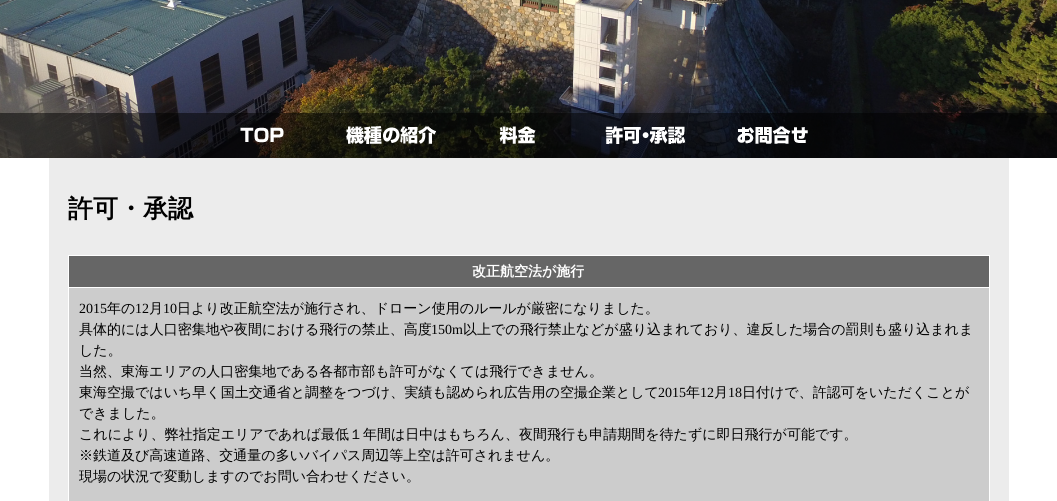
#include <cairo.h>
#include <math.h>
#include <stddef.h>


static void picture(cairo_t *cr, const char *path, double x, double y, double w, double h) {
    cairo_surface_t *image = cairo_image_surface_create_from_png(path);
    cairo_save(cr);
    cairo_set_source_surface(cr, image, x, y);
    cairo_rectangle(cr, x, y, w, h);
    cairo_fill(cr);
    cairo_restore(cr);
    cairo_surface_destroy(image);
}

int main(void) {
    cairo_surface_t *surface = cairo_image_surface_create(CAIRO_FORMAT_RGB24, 1057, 501);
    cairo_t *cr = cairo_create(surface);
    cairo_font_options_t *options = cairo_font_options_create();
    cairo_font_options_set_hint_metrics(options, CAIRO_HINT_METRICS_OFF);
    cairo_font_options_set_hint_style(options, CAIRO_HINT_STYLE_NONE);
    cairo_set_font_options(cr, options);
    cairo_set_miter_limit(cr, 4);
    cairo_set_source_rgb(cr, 1, 1, 1);
    cairo_paint(cr);
    picture(cr, "img1.png", 0, 0, 1057, 158);
    cairo_set_source_rgba(cr, 0, 0, 0, 0.51);
    cairo_rectangle(cr, 0, 113, 1057, 45);
    cairo_fill(cr);
    picture(cr, "img2.png", 240, 127, 44, 16);
    picture(cr, "img3.png", 346, 126, 90, 18);
    picture(cr, "img4.png", 499, 126, 37, 18);
    picture(cr, "img5.png", 605, 126, 81, 18);
    picture(cr, "img6.png", 737, 126, 71, 18);
    cairo_set_source_rgb(cr, 0.925, 0.925, 0.925);
    cairo_rectangle(cr, 49, 158, 960, 343);
    cairo_fill(cr);
    cairo_select_font_face(cr, "WenQuanYi Zen Hei", CAIRO_FONT_SLANT_NORMAL, CAIRO_FONT_WEIGHT_BOLD);
    cairo_set_font_size(cr, 25);
    cairo_set_source_rgb(cr, 0, 0, 0);
    cairo_move_to(cr, 68, 217);
    cairo_show_text(cr, "許可・承認");
    cairo_set_source_rgb(cr, 1, 1, 1);
    cairo_rectangle(cr, 68, 255, 922, 246);
    cairo_fill(cr);
    cairo_set_source_rgb(cr, 0.4, 0.4, 0.4);
    cairo_rectangle(cr, 69, 256, 920, 31);
    cairo_fill(cr);
    cairo_set_font_size(cr, 14);
    cairo_set_source_rgb(cr, 1, 1, 1);
    cairo_move_to(cr, 472, 276);
    cairo_show_text(cr, "改正航空法が施行");
    cairo_set_source_rgb(cr, 0.8, 0.8, 0.8);
    cairo_rectangle(cr, 69, 288, 920, 213);
    cairo_fill(cr);
    cairo_select_font_face(cr, "Liberation Serif", CAIRO_FONT_SLANT_NORMAL, CAIRO_FONT_WEIGHT_NORMAL);
    cairo_set_source_rgb(cr, 0, 0, 0);
    cairo_move_to(cr, 79, 313);
    cairo_show_text(cr, "2015");
    cairo_select_font_face(cr, "WenQuanYi Zen Hei Medium", CAIRO_FONT_SLANT_NORMAL, CAIRO_FONT_WEIGHT_NORMAL);
    cairo_move_to(cr, 107, 313);
    cairo_show_text(cr, "年の");
    cairo_select_font_face(cr, "Liberation Serif", CAIRO_FONT_SLANT_NORMAL, CAIRO_FONT_WEIGHT_NORMAL);
    cairo_move_to(cr, 135, 313);
    cairo_show_text(cr, "12");
    cairo_select_font_face(cr, "WenQuanYi Zen Hei Medium", CAIRO_FONT_SLANT_NORMAL, CAIRO_FONT_WEIGHT_NORMAL);
    cairo_move_to(cr, 149, 313);
    cairo_show_text(cr, "月");
    cairo_select_font_face(cr, "Liberation Serif", CAIRO_FONT_SLANT_NORMAL, CAIRO_FONT_WEIGHT_NORMAL);
    cairo_move_to(cr, 163, 313);
    cairo_show_text(cr, "10");
    cairo_select_font_face(cr, "WenQuanYi Zen Hei Medium", CAIRO_FONT_SLANT_NORMAL, CAIRO_FONT_WEIGHT_NORMAL);
    cairo_move_to(cr, 177, 313);
    cairo_show_text(cr, "日より改正航空法が施行され、ドローン使用のルールが厳密になりました。");
    cairo_move_to(cr, 79, 334);
    cairo_show_text(cr, "具体的には人口密集地や夜間における飛行の禁止、高度");
    cairo_select_font_face(cr, "Liberation Serif", CAIRO_FONT_SLANT_NORMAL, CAIRO_FONT_WEIGHT_NORMAL);
    cairo_move_to(cr, 431, 334);
    cairo_show_text(cr, "150m");
    cairo_select_font_face(cr, "WenQuanYi Zen Hei Medium", CAIRO_FONT_SLANT_NORMAL, CAIRO_FONT_WEIGHT_NORMAL);
    cairo_move_to(cr, 463, 334);
    cairo_show_text(cr, "以上での飛行禁止などが盛り込まれており、違反した場合の罰則も盛り込まれま");
    cairo_move_to(cr, 79, 355);
    cairo_show_text(cr, "した。");
    cairo_move_to(cr, 79, 376);
    cairo_show_text(cr, "当然、東海エリアの人口密集地である各都市部も許可がなくては飛行できません。");
    cairo_move_to(cr, 79, 397);
    cairo_show_text(cr, "東海空撮ではいち早く国土交通省と調整をつづけ、実績も認められ広告用の空撮企業として");
    cairo_select_font_face(cr, "Liberation Serif", CAIRO_FONT_SLANT_NORMAL, CAIRO_FONT_WEIGHT_NORMAL);
    cairo_move_to(cr, 658, 397);
    cairo_show_text(cr, "2015");
    cairo_select_font_face(cr, "WenQuanYi Zen Hei Medium", CAIRO_FONT_SLANT_NORMAL, CAIRO_FONT_WEIGHT_NORMAL);
    cairo_move_to(cr, 686, 397);
    cairo_show_text(cr, "年");
    cairo_select_font_face(cr, "Liberation Serif", CAIRO_FONT_SLANT_NORMAL, CAIRO_FONT_WEIGHT_NORMAL);
    cairo_move_to(cr, 700, 397);
    cairo_show_text(cr, "12");
    cairo_select_font_face(cr, "WenQuanYi Zen Hei Medium", CAIRO_FONT_SLANT_NORMAL, CAIRO_FONT_WEIGHT_NORMAL);
    cairo_move_to(cr, 714, 397);
    cairo_show_text(cr, "月");
    cairo_select_font_face(cr, "Liberation Serif", CAIRO_FONT_SLANT_NORMAL, CAIRO_FONT_WEIGHT_NORMAL);
    cairo_move_to(cr, 728, 397);
    cairo_show_text(cr, "18");
    cairo_select_font_face(cr, "WenQuanYi Zen Hei Medium", CAIRO_FONT_SLANT_NORMAL, CAIRO_FONT_WEIGHT_NORMAL);
    cairo_move_to(cr, 742, 397);
    cairo_show_text(cr, "日付けで、許認可をいただくことが");
    cairo_move_to(cr, 79, 418);
    cairo_show_text(cr, "できました。");
    cairo_move_to(cr, 79, 439);
    cairo_show_text(cr, "これにより、弊社指定エリアであれば最低１年間は日中はもちろん、夜間飛行も申請期間を待たずに即日飛行が可能です。");
    cairo_move_to(cr, 79, 460);
    cairo_show_text(cr, "※鉄道及び高速道路、交通量の多いバイパス周辺等上空は許可されません。");
    cairo_move_to(cr, 79, 481);
    cairo_show_text(cr, "現場の状況で変動しますのでお問い合わせください。");
    cairo_surface_write_to_png(surface, "page.png");
    cairo_font_options_destroy(options);
    cairo_destroy(cr);
    cairo_surface_destroy(surface);
    return 0;
}
